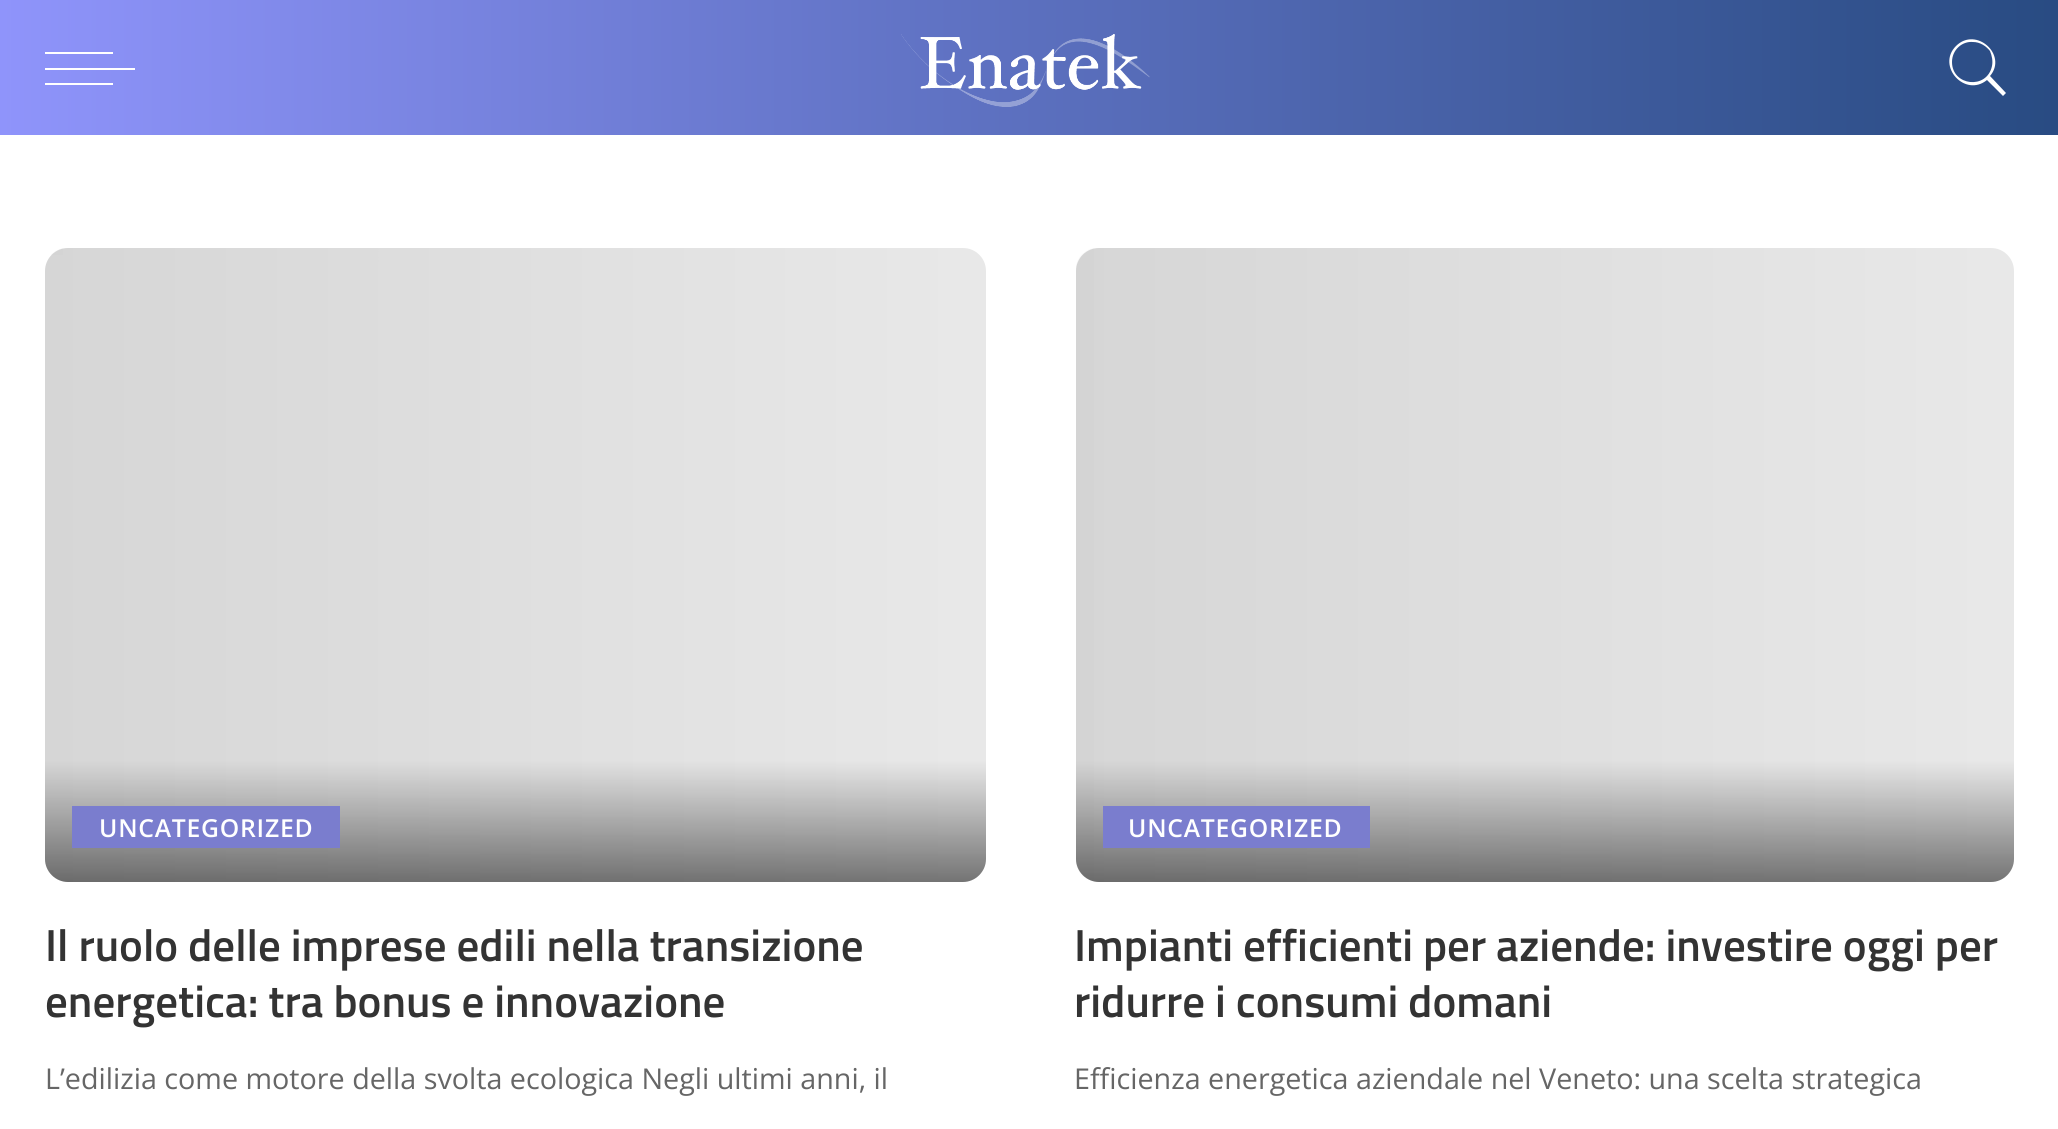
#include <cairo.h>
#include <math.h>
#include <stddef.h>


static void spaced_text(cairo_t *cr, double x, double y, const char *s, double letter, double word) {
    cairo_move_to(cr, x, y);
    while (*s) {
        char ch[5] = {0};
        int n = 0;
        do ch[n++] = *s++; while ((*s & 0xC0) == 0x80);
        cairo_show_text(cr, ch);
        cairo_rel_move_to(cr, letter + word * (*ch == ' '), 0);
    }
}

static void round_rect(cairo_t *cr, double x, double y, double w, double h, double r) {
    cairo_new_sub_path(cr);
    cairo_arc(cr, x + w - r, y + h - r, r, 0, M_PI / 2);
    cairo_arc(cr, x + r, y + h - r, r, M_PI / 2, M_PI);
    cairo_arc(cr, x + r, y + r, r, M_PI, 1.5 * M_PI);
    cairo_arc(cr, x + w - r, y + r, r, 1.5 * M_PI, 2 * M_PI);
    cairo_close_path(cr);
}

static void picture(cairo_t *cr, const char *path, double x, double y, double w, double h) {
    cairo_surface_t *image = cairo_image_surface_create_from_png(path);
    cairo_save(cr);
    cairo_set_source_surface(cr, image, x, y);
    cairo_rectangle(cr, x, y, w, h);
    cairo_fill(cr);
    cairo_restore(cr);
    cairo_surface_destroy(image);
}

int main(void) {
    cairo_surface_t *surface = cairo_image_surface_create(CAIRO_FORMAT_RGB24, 2058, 1129);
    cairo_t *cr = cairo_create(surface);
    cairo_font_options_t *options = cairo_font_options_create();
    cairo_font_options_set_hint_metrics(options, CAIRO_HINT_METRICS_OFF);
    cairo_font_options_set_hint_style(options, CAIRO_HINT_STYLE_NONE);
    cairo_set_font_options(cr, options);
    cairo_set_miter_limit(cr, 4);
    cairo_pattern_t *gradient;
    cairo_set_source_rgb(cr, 1, 1, 1);
    cairo_paint(cr);
    gradient = cairo_pattern_create_linear(0, 68, 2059, 67);
    cairo_pattern_add_color_stop_rgba(gradient, 0, 0.561, 0.58, 0.984, 1);
    cairo_pattern_add_color_stop_rgba(gradient, 1, 0.157, 0.294, 0.51, 1);
    cairo_set_source(cr, gradient);
    cairo_pattern_destroy(gradient);
    cairo_rectangle(cr, 0, 0, 2058, 135);
    cairo_fill(cr);
    cairo_set_source_rgb(cr, 1, 1, 1);
    cairo_rectangle(cr, 45, 68, 90, 2);
    cairo_fill(cr);
    cairo_rectangle(cr, 45, 52, 68, 2);
    cairo_fill(cr);
    cairo_rectangle(cr, 45, 83, 68, 2);
    cairo_fill(cr);
    picture(cr, "img1.png", 901, 34, 249, 73);
    cairo_new_path(cr);
    cairo_move_to(cr, 2006, 93);
    cairo_line_to(cr, 1990, 76);
    cairo_curve_to(cr, 2008, 55, 1976, 26, 1956, 46);
    cairo_curve_to(cr, 1936, 66, 1965, 98, 1987, 80);
    cairo_line_to(cr, 2003, 96);
    cairo_close_path(cr);
    cairo_move_to(cr, 1952, 62);
    cairo_curve_to(cr, 1952, 50, 1962, 41, 1973, 42);
    cairo_curve_to(cr, 1980, 42, 1986, 46, 1990, 51);
    cairo_curve_to(cr, 1992, 56, 1993, 61, 1992, 66);
    cairo_curve_to(cr, 1987, 90, 1952, 86, 1952, 62);
    cairo_close_path(cr);
    cairo_fill(cr);
    gradient = cairo_pattern_create_linear(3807, 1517, 45, 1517);
    cairo_pattern_add_color_stop_rgba(gradient, 0, 0.839, 0.839, 0.839, 1);
    cairo_pattern_add_color_stop_rgba(gradient, 0.5, 0.984, 0.984, 0.984, 1);
    cairo_pattern_add_color_stop_rgba(gradient, 1, 0.839, 0.839, 0.839, 1);
    cairo_set_source(cr, gradient);
    cairo_pattern_destroy(gradient);
    round_rect(cr, 45, 248, 941, 634, 23);
    cairo_fill(cr);
    picture(cr, "img2.png", 51, 248, 12, 7);
    gradient = cairo_pattern_create_linear(515, 761, 515, 882);
    cairo_pattern_add_color_stop_rgba(gradient, 0, 0, 0, 0, 0);
    cairo_pattern_add_color_stop_rgba(gradient, 1, 0, 0, 0, 0.5);
    cairo_set_source(cr, gradient);
    cairo_pattern_destroy(gradient);
    cairo_new_path(cr);
    cairo_move_to(cr, 45, 761);
    cairo_line_to(cr, 986, 761);
    cairo_line_to(cr, 986, 859);
    cairo_curve_to(cr, 986, 871.5, 975.5, 882, 963, 882);
    cairo_line_to(cr, 68, 882);
    cairo_curve_to(cr, 55.5, 882, 45, 871.5, 45, 859);
    cairo_close_path(cr);
    cairo_fill(cr);
    cairo_set_source_rgb(cr, 0.478, 0.49, 0.808);
    cairo_rectangle(cr, 72, 806, 268, 42);
    cairo_fill(cr);
    cairo_select_font_face(cr, "Open Sans SemiBold", CAIRO_FONT_SLANT_NORMAL, CAIRO_FONT_WEIGHT_NORMAL);
    cairo_set_font_size(cr, 24.75);
    cairo_set_source_rgb(cr, 1, 1, 1);
    spaced_text(cr, 99, 837, "UNCATEGORIZED", 0.75, 0);
    cairo_select_font_face(cr, "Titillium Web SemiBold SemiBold", CAIRO_FONT_SLANT_NORMAL, CAIRO_FONT_WEIGHT_NORMAL);
    cairo_set_font_size(cr, 45);
    cairo_set_source_rgb(cr, 0.2, 0.2, 0.2);
    cairo_move_to(cr, 45, 961);
    cairo_show_text(cr, "Il ruolo delle imprese edili nella transizione");
    cairo_move_to(cr, 45, 1017);
    cairo_show_text(cr, "energetica: tra bonus e innovazione");
    cairo_select_font_face(cr, "Open Sans", CAIRO_FONT_SLANT_NORMAL, CAIRO_FONT_WEIGHT_NORMAL);
    cairo_set_font_size(cr, 28.7);
    cairo_set_source_rgb(cr, 0.4, 0.4, 0.4);
    cairo_move_to(cr, 45, 1089);
    cairo_show_text(cr, "L’edilizia come motore della svolta ecologica Negli ultimi anni, il");
    gradient = cairo_pattern_create_linear(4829, 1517, 1076, 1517);
    cairo_pattern_add_color_stop_rgba(gradient, 0, 0.839, 0.839, 0.839, 1);
    cairo_pattern_add_color_stop_rgba(gradient, 0.5, 0.984, 0.984, 0.984, 1);
    cairo_pattern_add_color_stop_rgba(gradient, 1, 0.839, 0.839, 0.839, 1);
    cairo_set_source(cr, gradient);
    cairo_pattern_destroy(gradient);
    round_rect(cr, 1076, 248, 938, 634, 23);
    cairo_fill(cr);
    picture(cr, "img3.png", 1076, 248, 18, 631);
    gradient = cairo_pattern_create_linear(1545, 761, 1545, 882);
    cairo_pattern_add_color_stop_rgba(gradient, 0, 0, 0, 0, 0);
    cairo_pattern_add_color_stop_rgba(gradient, 1, 0, 0, 0, 0.5);
    cairo_set_source(cr, gradient);
    cairo_pattern_destroy(gradient);
    cairo_new_path(cr);
    cairo_move_to(cr, 1076, 761);
    cairo_line_to(cr, 2014, 761);
    cairo_line_to(cr, 2014, 859);
    cairo_curve_to(cr, 2014, 871.5, 2003.5, 882, 1991, 882);
    cairo_line_to(cr, 1099, 882);
    cairo_curve_to(cr, 1086.5, 882, 1076, 871.5, 1076, 859);
    cairo_close_path(cr);
    cairo_fill(cr);
    cairo_set_source_rgb(cr, 0.478, 0.49, 0.808);
    cairo_rectangle(cr, 1103, 806, 267, 42);
    cairo_fill(cr);
    cairo_select_font_face(cr, "Open Sans SemiBold", CAIRO_FONT_SLANT_NORMAL, CAIRO_FONT_WEIGHT_NORMAL);
    cairo_set_font_size(cr, 24.75);
    cairo_set_source_rgb(cr, 1, 1, 1);
    spaced_text(cr, 1128, 837, "UNCATEGORIZED", 0.75, 0);
    cairo_select_font_face(cr, "Titillium Web SemiBold SemiBold", CAIRO_FONT_SLANT_NORMAL, CAIRO_FONT_WEIGHT_NORMAL);
    cairo_set_font_size(cr, 45);
    cairo_set_source_rgb(cr, 0.2, 0.2, 0.2);
    cairo_move_to(cr, 1074, 961);
    cairo_show_text(cr, "Impianti efficienti per aziende: investire oggi per");
    cairo_move_to(cr, 1074, 1017);
    cairo_show_text(cr, "ridurre i consumi domani");
    cairo_select_font_face(cr, "Open Sans", CAIRO_FONT_SLANT_NORMAL, CAIRO_FONT_WEIGHT_NORMAL);
    cairo_set_font_size(cr, 28.7);
    cairo_set_source_rgb(cr, 0.4, 0.4, 0.4);
    cairo_move_to(cr, 1074, 1089);
    cairo_show_text(cr, "Efficienza energetica aziendale nel Veneto: una scelta strategica");
    cairo_surface_write_to_png(surface, "page.png");
    cairo_font_options_destroy(options);
    cairo_destroy(cr);
    cairo_surface_destroy(surface);
    return 0;
}
